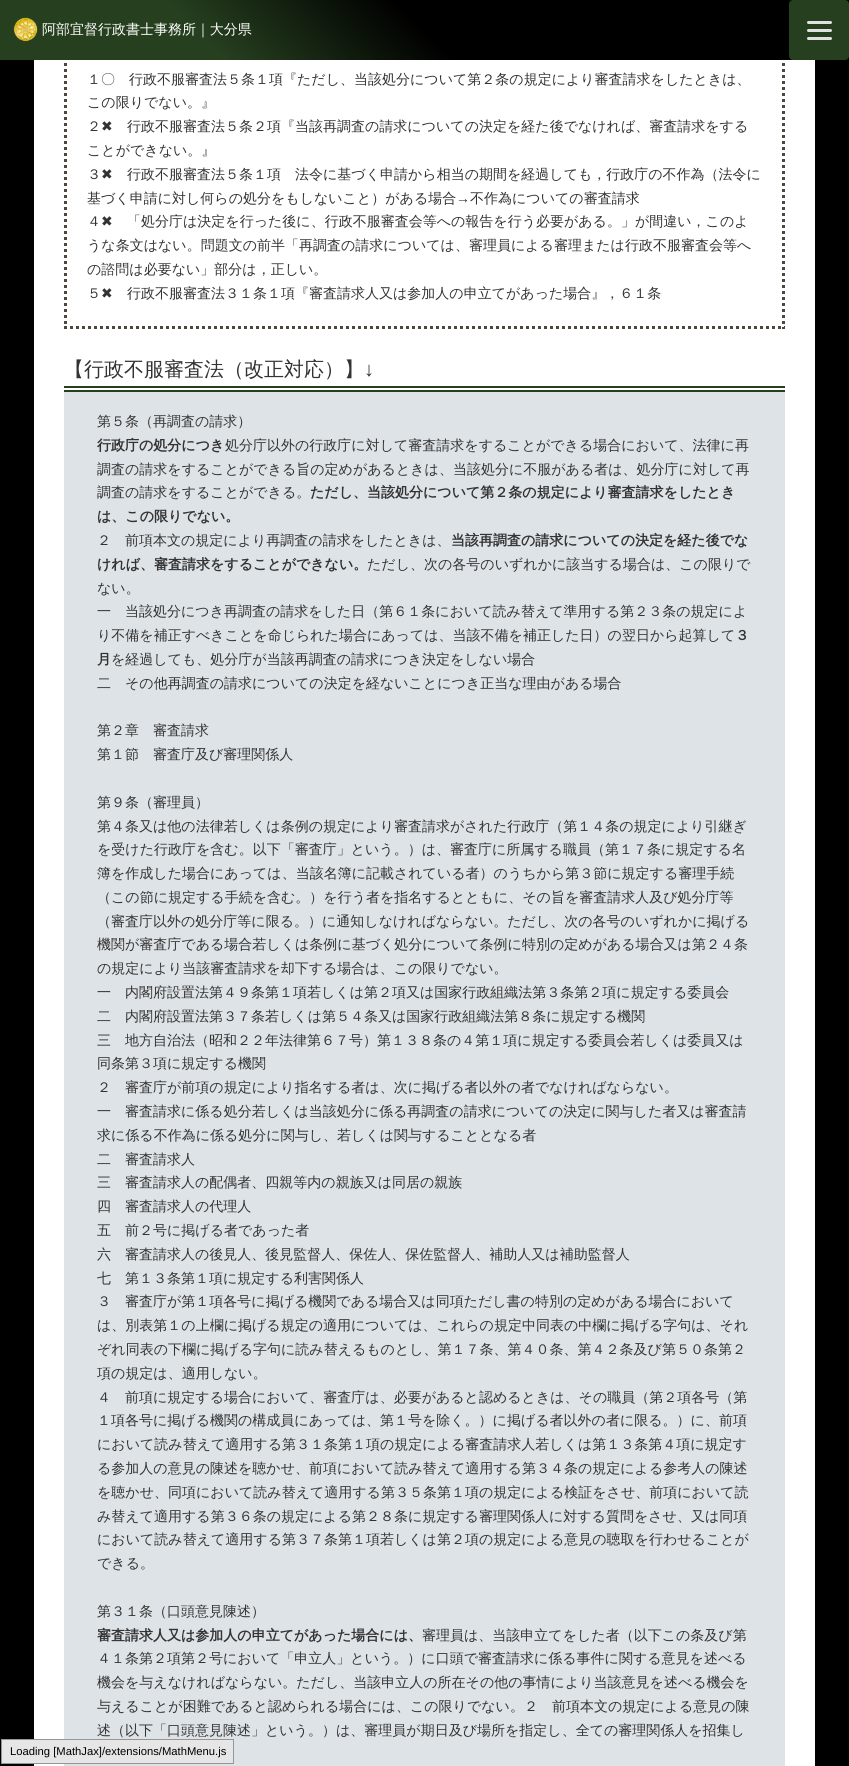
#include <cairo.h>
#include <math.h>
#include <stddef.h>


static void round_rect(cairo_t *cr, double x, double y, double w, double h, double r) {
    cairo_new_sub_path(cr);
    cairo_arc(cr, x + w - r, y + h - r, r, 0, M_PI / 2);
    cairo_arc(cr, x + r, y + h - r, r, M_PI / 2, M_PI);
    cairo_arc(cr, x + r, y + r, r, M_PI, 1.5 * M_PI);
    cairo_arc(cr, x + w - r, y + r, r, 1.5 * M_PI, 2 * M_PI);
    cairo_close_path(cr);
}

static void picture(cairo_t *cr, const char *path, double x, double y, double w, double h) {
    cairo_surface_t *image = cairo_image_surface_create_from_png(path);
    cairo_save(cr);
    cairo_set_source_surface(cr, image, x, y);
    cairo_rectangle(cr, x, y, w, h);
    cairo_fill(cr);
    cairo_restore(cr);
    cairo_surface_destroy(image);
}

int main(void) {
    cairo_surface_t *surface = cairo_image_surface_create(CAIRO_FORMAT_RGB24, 849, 1766);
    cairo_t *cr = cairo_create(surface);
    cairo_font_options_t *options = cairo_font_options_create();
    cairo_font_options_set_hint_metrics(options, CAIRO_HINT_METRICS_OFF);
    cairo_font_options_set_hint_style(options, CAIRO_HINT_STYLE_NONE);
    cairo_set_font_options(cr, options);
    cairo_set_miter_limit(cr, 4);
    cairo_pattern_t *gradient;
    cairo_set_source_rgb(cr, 0, 0, 0);
    cairo_paint(cr);
    cairo_set_source_rgb(cr, 1, 1, 1);
    cairo_rectangle(cr, 34, 60, 781, 1706);
    cairo_fill(cr);
    cairo_new_path(cr);
    cairo_move_to(cr, 783.5, 21);
    cairo_line_to(cr, 783.5, 329);
    cairo_set_source_rgb(cr, 0.302, 0.278, 0.251);
    cairo_set_line_width(cr, 3);
    cairo_set_dash(cr, (double[]){3, 3}, 2, 0);
    cairo_stroke(cr);
    cairo_new_path(cr);
    cairo_move_to(cr, 64, 327.5);
    cairo_line_to(cr, 785, 327.5);
    cairo_stroke(cr);
    cairo_new_path(cr);
    cairo_move_to(cr, 65.5, 21);
    cairo_line_to(cr, 65.5, 329);
    cairo_stroke(cr);
    gradient = cairo_pattern_create_linear(197, 257, 652, -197);
    cairo_pattern_add_color_stop_rgba(gradient, 0, 0.149, 0.247, 0.122, 1);
    cairo_pattern_add_color_stop_rgba(gradient, 0.25, 0.149, 0.247, 0.122, 1);
    cairo_pattern_add_color_stop_rgba(gradient, 0.5, 0, 0, 0, 1);
    cairo_pattern_add_color_stop_rgba(gradient, 1, 0, 0, 0, 1);
    cairo_set_source(cr, gradient);
    cairo_pattern_destroy(gradient);
    cairo_rectangle(cr, 0, 0, 785, 60);
    cairo_fill(cr);
    picture(cr, "img1.png", 13, 17, 25, 25);
    cairo_select_font_face(cr, "WenQuanYi Zen Hei Medium", CAIRO_FONT_SLANT_NORMAL, CAIRO_FONT_WEIGHT_NORMAL);
    cairo_set_font_size(cr, 14);
    cairo_set_source_rgb(cr, 1, 1, 1);
    cairo_move_to(cr, 42, 34);
    cairo_show_text(cr, "阿部宜督行政書士事務所｜大分県");
    cairo_set_source_rgb(cr, 0.149, 0.247, 0.122);
    round_rect(cr, 789, 0, 60, 60, 4);
    cairo_fill(cr);
    cairo_set_source_rgb(cr, 0.886, 0.882, 0.882);
    round_rect(cr, 807, 29, 25, 3, 1.5);
    cairo_fill(cr);
    round_rect(cr, 807, 21, 25, 3, 1.5);
    cairo_fill(cr);
    round_rect(cr, 807, 37, 25, 3, 1.5);
    cairo_fill(cr);
    cairo_set_source_rgb(cr, 0.2, 0.2, 0.2);
    cairo_move_to(cr, 87, 84);
    cairo_show_text(cr, "１〇　行政不服審査法５条１項『ただし、当該処分について第２条の規定により審査請求をしたときは、");
    cairo_move_to(cr, 87, 107);
    cairo_show_text(cr, "この限りでない。』");
    cairo_move_to(cr, 87, 131);
    cairo_show_text(cr, "２");
    cairo_select_font_face(cr, "DejaVu Sans", CAIRO_FONT_SLANT_NORMAL, CAIRO_FONT_WEIGHT_NORMAL);
    cairo_move_to(cr, 101, 131);
    cairo_show_text(cr, "✖");
    cairo_select_font_face(cr, "WenQuanYi Zen Hei Medium", CAIRO_FONT_SLANT_NORMAL, CAIRO_FONT_WEIGHT_NORMAL);
    cairo_move_to(cr, 127, 131);
    cairo_show_text(cr, "行政不服審査法５条２項『当該再調査の請求についての決定を経た後でなければ、審査請求をする");
    cairo_move_to(cr, 87, 155);
    cairo_show_text(cr, "ことができない。』");
    cairo_move_to(cr, 87, 179);
    cairo_show_text(cr, "３");
    cairo_select_font_face(cr, "DejaVu Sans", CAIRO_FONT_SLANT_NORMAL, CAIRO_FONT_WEIGHT_NORMAL);
    cairo_move_to(cr, 101, 179);
    cairo_show_text(cr, "✖");
    cairo_select_font_face(cr, "WenQuanYi Zen Hei Medium", CAIRO_FONT_SLANT_NORMAL, CAIRO_FONT_WEIGHT_NORMAL);
    cairo_move_to(cr, 127, 179);
    cairo_show_text(cr, "行政不服審査法５条１項　法令に基づく申請から相当の期間を経過しても，行政庁の不作為（法令に");
    cairo_move_to(cr, 87, 203);
    cairo_show_text(cr, "基づく申請に対し何らの処分をもしないこと）がある場合");
    cairo_select_font_face(cr, "Liberation Sans", CAIRO_FONT_SLANT_NORMAL, CAIRO_FONT_WEIGHT_NORMAL);
    cairo_move_to(cr, 456, 203);
    cairo_show_text(cr, "→");
    cairo_select_font_face(cr, "WenQuanYi Zen Hei Medium", CAIRO_FONT_SLANT_NORMAL, CAIRO_FONT_WEIGHT_NORMAL);
    cairo_move_to(cr, 470, 203);
    cairo_show_text(cr, "不作為についての審査請求");
    cairo_move_to(cr, 87, 226);
    cairo_show_text(cr, "４");
    cairo_select_font_face(cr, "DejaVu Sans", CAIRO_FONT_SLANT_NORMAL, CAIRO_FONT_WEIGHT_NORMAL);
    cairo_move_to(cr, 101, 226);
    cairo_show_text(cr, "✖");
    cairo_select_font_face(cr, "WenQuanYi Zen Hei Medium", CAIRO_FONT_SLANT_NORMAL, CAIRO_FONT_WEIGHT_NORMAL);
    cairo_move_to(cr, 127, 226);
    cairo_show_text(cr, "「処分庁は決定を行った後に、行政不服審査会等への報告を行う必要がある。」が間違い，このよ");
    cairo_move_to(cr, 87, 250);
    cairo_show_text(cr, "うな条文はない。問題文の前半「再調査の請求については、審理員による審理または行政不服審査会等へ");
    cairo_move_to(cr, 87, 274);
    cairo_show_text(cr, "の諮問は必要ない」部分は，正しい。");
    cairo_move_to(cr, 87, 298);
    cairo_show_text(cr, "５");
    cairo_select_font_face(cr, "DejaVu Sans", CAIRO_FONT_SLANT_NORMAL, CAIRO_FONT_WEIGHT_NORMAL);
    cairo_move_to(cr, 101, 298);
    cairo_show_text(cr, "✖");
    cairo_select_font_face(cr, "WenQuanYi Zen Hei Medium", CAIRO_FONT_SLANT_NORMAL, CAIRO_FONT_WEIGHT_NORMAL);
    cairo_move_to(cr, 127, 298);
    cairo_show_text(cr, "行政不服審査法３１条１項『審査請求人又は参加人の申立てがあった場合』，６１条");
    cairo_set_source_rgb(cr, 0.149, 0.247, 0.122);
    cairo_rectangle(cr, 64, 386, 721, 2);
    cairo_fill(cr);
    cairo_rectangle(cr, 64, 390, 721, 2);
    cairo_fill(cr);
    cairo_set_font_size(cr, 20);
    cairo_set_source_rgb(cr, 0.2, 0.2, 0.2);
    cairo_move_to(cr, 64, 376);
    cairo_show_text(cr, "【行政不服審査法（改正対応）】");
    cairo_select_font_face(cr, "Liberation Sans", CAIRO_FONT_SLANT_NORMAL, CAIRO_FONT_WEIGHT_NORMAL);
    cairo_move_to(cr, 364, 376);
    cairo_show_text(cr, "↓");
    cairo_set_source_rgb(cr, 0.871, 0.89, 0.906);
    cairo_rectangle(cr, 64, 392, 721, 1374);
    cairo_fill(cr);
    cairo_select_font_face(cr, "WenQuanYi Zen Hei Medium", CAIRO_FONT_SLANT_NORMAL, CAIRO_FONT_WEIGHT_NORMAL);
    cairo_set_font_size(cr, 14);
    cairo_set_source_rgb(cr, 0.2, 0.2, 0.2);
    cairo_move_to(cr, 97, 426);
    cairo_show_text(cr, "第５条（再調査の請求）");
    cairo_select_font_face(cr, "WenQuanYi Zen Hei", CAIRO_FONT_SLANT_NORMAL, CAIRO_FONT_WEIGHT_BOLD);
    cairo_move_to(cr, 97, 450);
    cairo_show_text(cr, "行政庁の処分につき");
    cairo_select_font_face(cr, "WenQuanYi Zen Hei Medium", CAIRO_FONT_SLANT_NORMAL, CAIRO_FONT_WEIGHT_NORMAL);
    cairo_move_to(cr, 225, 450);
    cairo_show_text(cr, "処分庁以外の行政庁に対して審査請求をすることができる場合において、法律に再");
    cairo_move_to(cr, 97, 474);
    cairo_show_text(cr, "調査の請求をすることができる旨の定めがあるときは、当該処分に不服がある者は、処分庁に対して再");
    cairo_move_to(cr, 97, 497);
    cairo_show_text(cr, "調査の請求をすることができる。");
    cairo_select_font_face(cr, "WenQuanYi Zen Hei", CAIRO_FONT_SLANT_NORMAL, CAIRO_FONT_WEIGHT_BOLD);
    cairo_move_to(cr, 310, 497);
    cairo_show_text(cr, "ただし、当該処分について第２条の規定により審査請求をしたとき");
    cairo_move_to(cr, 97, 521);
    cairo_show_text(cr, "は、この限りでない。");
    cairo_select_font_face(cr, "WenQuanYi Zen Hei Medium", CAIRO_FONT_SLANT_NORMAL, CAIRO_FONT_WEIGHT_NORMAL);
    cairo_move_to(cr, 97, 545);
    cairo_show_text(cr, "２　前項本文の規定により再調査の請求をしたときは、");
    cairo_select_font_face(cr, "WenQuanYi Zen Hei", CAIRO_FONT_SLANT_NORMAL, CAIRO_FONT_WEIGHT_BOLD);
    cairo_move_to(cr, 451, 545);
    cairo_show_text(cr, "当該再調査の請求についての決定を経た後でな");
    cairo_move_to(cr, 97, 569);
    cairo_show_text(cr, "ければ、審査請求をすることができない。");
    cairo_select_font_face(cr, "WenQuanYi Zen Hei Medium", CAIRO_FONT_SLANT_NORMAL, CAIRO_FONT_WEIGHT_NORMAL);
    cairo_move_to(cr, 367, 569);
    cairo_show_text(cr, "ただし、次の各号のいずれかに該当する場合は、この限りで");
    cairo_move_to(cr, 97, 593);
    cairo_show_text(cr, "ない。");
    cairo_move_to(cr, 97, 616);
    cairo_show_text(cr, "一　当該処分につき再調査の請求をした日（第６１条において読み替えて準用する第２３条の規定によ");
    cairo_move_to(cr, 97, 640);
    cairo_show_text(cr, "り不備を補正すべきことを命じられた場合にあっては、当該不備を補正した日）の翌日から起算して");
    cairo_select_font_face(cr, "WenQuanYi Zen Hei", CAIRO_FONT_SLANT_NORMAL, CAIRO_FONT_WEIGHT_BOLD);
    cairo_move_to(cr, 735, 640);
    cairo_show_text(cr, "３");
    cairo_move_to(cr, 97, 664);
    cairo_show_text(cr, "月");
    cairo_select_font_face(cr, "WenQuanYi Zen Hei Medium", CAIRO_FONT_SLANT_NORMAL, CAIRO_FONT_WEIGHT_NORMAL);
    cairo_move_to(cr, 111, 664);
    cairo_show_text(cr, "を経過しても、処分庁が当該再調査の請求につき決定をしない場合");
    cairo_move_to(cr, 97, 688);
    cairo_show_text(cr, "二　その他再調査の請求についての決定を経ないことにつき正当な理由がある場合");
    cairo_move_to(cr, 97, 735);
    cairo_show_text(cr, "第２章　審査請求");
    cairo_move_to(cr, 97, 759);
    cairo_show_text(cr, "第１節　審査庁及び審理関係人");
    cairo_move_to(cr, 97, 807);
    cairo_show_text(cr, "第９条（審理員）");
    cairo_move_to(cr, 97, 831);
    cairo_show_text(cr, "第４条又は他の法律若しくは条例の規定により審査請求がされた行政庁（第１４条の規定により引継ぎ");
    cairo_move_to(cr, 97, 854);
    cairo_show_text(cr, "を受けた行政庁を含む。以下「審査庁」という。）は、審査庁に所属する職員（第１７条に規定する名");
    cairo_move_to(cr, 97, 878);
    cairo_show_text(cr, "簿を作成した場合にあっては、当該名簿に記載されている者）のうちから第３節に規定する審理手続");
    cairo_move_to(cr, 97, 902);
    cairo_show_text(cr, "（この節に規定する手続を含む。）を行う者を指名するとともに、その旨を審査請求人及び処分庁等");
    cairo_move_to(cr, 97, 926);
    cairo_show_text(cr, "（審査庁以外の処分庁等に限る。）に通知しなければならない。ただし、次の各号のいずれかに掲げる");
    cairo_move_to(cr, 97, 949);
    cairo_show_text(cr, "機関が審査庁である場合若しくは条例に基づく処分について条例に特別の定めがある場合又は第２４条");
    cairo_move_to(cr, 97, 973);
    cairo_show_text(cr, "の規定により当該審査請求を却下する場合は、この限りでない。");
    cairo_move_to(cr, 97, 997);
    cairo_show_text(cr, "一　内閣府設置法第４９条第１項若しくは第２項又は国家行政組織法第３条第２項に規定する委員会");
    cairo_move_to(cr, 97, 1021);
    cairo_show_text(cr, "二　内閣府設置法第３７条若しくは第５４条又は国家行政組織法第８条に規定する機関");
    cairo_move_to(cr, 97, 1045);
    cairo_show_text(cr, "三　地方自治法（昭和２２年法律第６７号）第１３８条の４第１項に規定する委員会若しくは委員又は");
    cairo_move_to(cr, 97, 1068);
    cairo_show_text(cr, "同条第３項に規定する機関");
    cairo_move_to(cr, 97, 1092);
    cairo_show_text(cr, "２　審査庁が前項の規定により指名する者は、次に掲げる者以外の者でなければならない。");
    cairo_move_to(cr, 97, 1116);
    cairo_show_text(cr, "一　審査請求に係る処分若しくは当該処分に係る再調査の請求についての決定に関与した者又は審査請");
    cairo_move_to(cr, 97, 1140);
    cairo_show_text(cr, "求に係る不作為に係る処分に関与し、若しくは関与することとなる者");
    cairo_move_to(cr, 97, 1164);
    cairo_show_text(cr, "二　審査請求人");
    cairo_move_to(cr, 97, 1187);
    cairo_show_text(cr, "三　審査請求人の配偶者、四親等内の親族又は同居の親族");
    cairo_move_to(cr, 97, 1211);
    cairo_show_text(cr, "四　審査請求人の代理人");
    cairo_move_to(cr, 97, 1235);
    cairo_show_text(cr, "五　前２号に掲げる者であった者");
    cairo_move_to(cr, 97, 1259);
    cairo_show_text(cr, "六　審査請求人の後見人、後見監督人、保佐人、保佐監督人、補助人又は補助監督人");
    cairo_move_to(cr, 97, 1283);
    cairo_show_text(cr, "七　第１３条第１項に規定する利害関係人");
    cairo_move_to(cr, 97, 1306);
    cairo_show_text(cr, "３　審査庁が第１項各号に掲げる機関である場合又は同項ただし書の特別の定めがある場合において");
    cairo_move_to(cr, 97, 1330);
    cairo_show_text(cr, "は、別表第１の上欄に掲げる規定の適用については、これらの規定中同表の中欄に掲げる字句は、それ");
    cairo_move_to(cr, 97, 1354);
    cairo_show_text(cr, "ぞれ同表の下欄に掲げる字句に読み替えるものとし、第１７条、第４０条、第４２条及び第５０条第２");
    cairo_move_to(cr, 97, 1378);
    cairo_show_text(cr, "項の規定は、適用しない。");
    cairo_move_to(cr, 97, 1402);
    cairo_show_text(cr, "４　前項に規定する場合において、審査庁は、必要があると認めるときは、その職員（第２項各号（第");
    cairo_move_to(cr, 97, 1425);
    cairo_show_text(cr, "１項各号に掲げる機関の構成員にあっては、第１号を除く。）に掲げる者以外の者に限る。）に、前項");
    cairo_move_to(cr, 97, 1449);
    cairo_show_text(cr, "において読み替えて適用する第３１条第１項の規定による審査請求人若しくは第１３条第４項に規定す");
    cairo_move_to(cr, 97, 1473);
    cairo_show_text(cr, "る参加人の意見の陳述を聴かせ、前項において読み替えて適用する第３４条の規定による参考人の陳述");
    cairo_move_to(cr, 97, 1497);
    cairo_show_text(cr, "を聴かせ、同項において読み替えて適用する第３５条第１項の規定による検証をさせ、前項において読");
    cairo_move_to(cr, 97, 1521);
    cairo_show_text(cr, "み替えて適用する第３６条の規定による第２８条に規定する審理関係人に対する質問をさせ、又は同項");
    cairo_move_to(cr, 97, 1544);
    cairo_show_text(cr, "において読み替えて適用する第３７条第１項若しくは第２項の規定による意見の聴取を行わせることが");
    cairo_move_to(cr, 97, 1568);
    cairo_show_text(cr, "できる。");
    cairo_move_to(cr, 97, 1616);
    cairo_show_text(cr, "第３１条（口頭意見陳述）");
    cairo_select_font_face(cr, "WenQuanYi Zen Hei", CAIRO_FONT_SLANT_NORMAL, CAIRO_FONT_WEIGHT_BOLD);
    cairo_move_to(cr, 97, 1640);
    cairo_show_text(cr, "審査請求人又は参加人の申立てがあった場合には、");
    cairo_select_font_face(cr, "WenQuanYi Zen Hei Medium", CAIRO_FONT_SLANT_NORMAL, CAIRO_FONT_WEIGHT_NORMAL);
    cairo_move_to(cr, 422, 1640);
    cairo_show_text(cr, "審理員は、当該申立てをした者（以下この条及び第");
    cairo_move_to(cr, 97, 1663);
    cairo_show_text(cr, "４１条第２項第２号において「申立人」という。）に口頭で審査請求に係る事件に関する意見を述べる");
    cairo_move_to(cr, 97, 1687);
    cairo_show_text(cr, "機会を与えなければならない。ただし、当該申立人の所在その他の事情により当該意見を述べる機会を");
    cairo_move_to(cr, 97, 1711);
    cairo_show_text(cr, "与えることが困難であると認められる場合には、この限りでない。２　前項本文の規定による意見の陳");
    cairo_move_to(cr, 97, 1735);
    cairo_show_text(cr, "述（以下「口頭意見陳述」という。）は、審理員が期日及び場所を指定し、全ての審理関係人を招集し");
    cairo_set_source_rgb(cr, 0.902, 0.902, 0.902);
    cairo_rectangle(cr, 1.5, 1739.5, 232, 24);
    cairo_fill_preserve(cr);
    cairo_set_source_rgb(cr, 0.584, 0.584, 0.584);
    cairo_set_line_width(cr, 1);
    cairo_set_dash(cr, NULL, 0, 0);
    cairo_stroke(cr);
    cairo_select_font_face(cr, "Liberation Sans", CAIRO_FONT_SLANT_NORMAL, CAIRO_FONT_WEIGHT_NORMAL);
    cairo_set_font_size(cr, 11.25);
    cairo_set_source_rgb(cr, 0, 0, 0);
    cairo_move_to(cr, 10, 1755);
    cairo_show_text(cr, "Loading [MathJax]/extensions/MathMenu.js");
    cairo_surface_write_to_png(surface, "page.png");
    cairo_font_options_destroy(options);
    cairo_destroy(cr);
    cairo_surface_destroy(surface);
    return 0;
}
